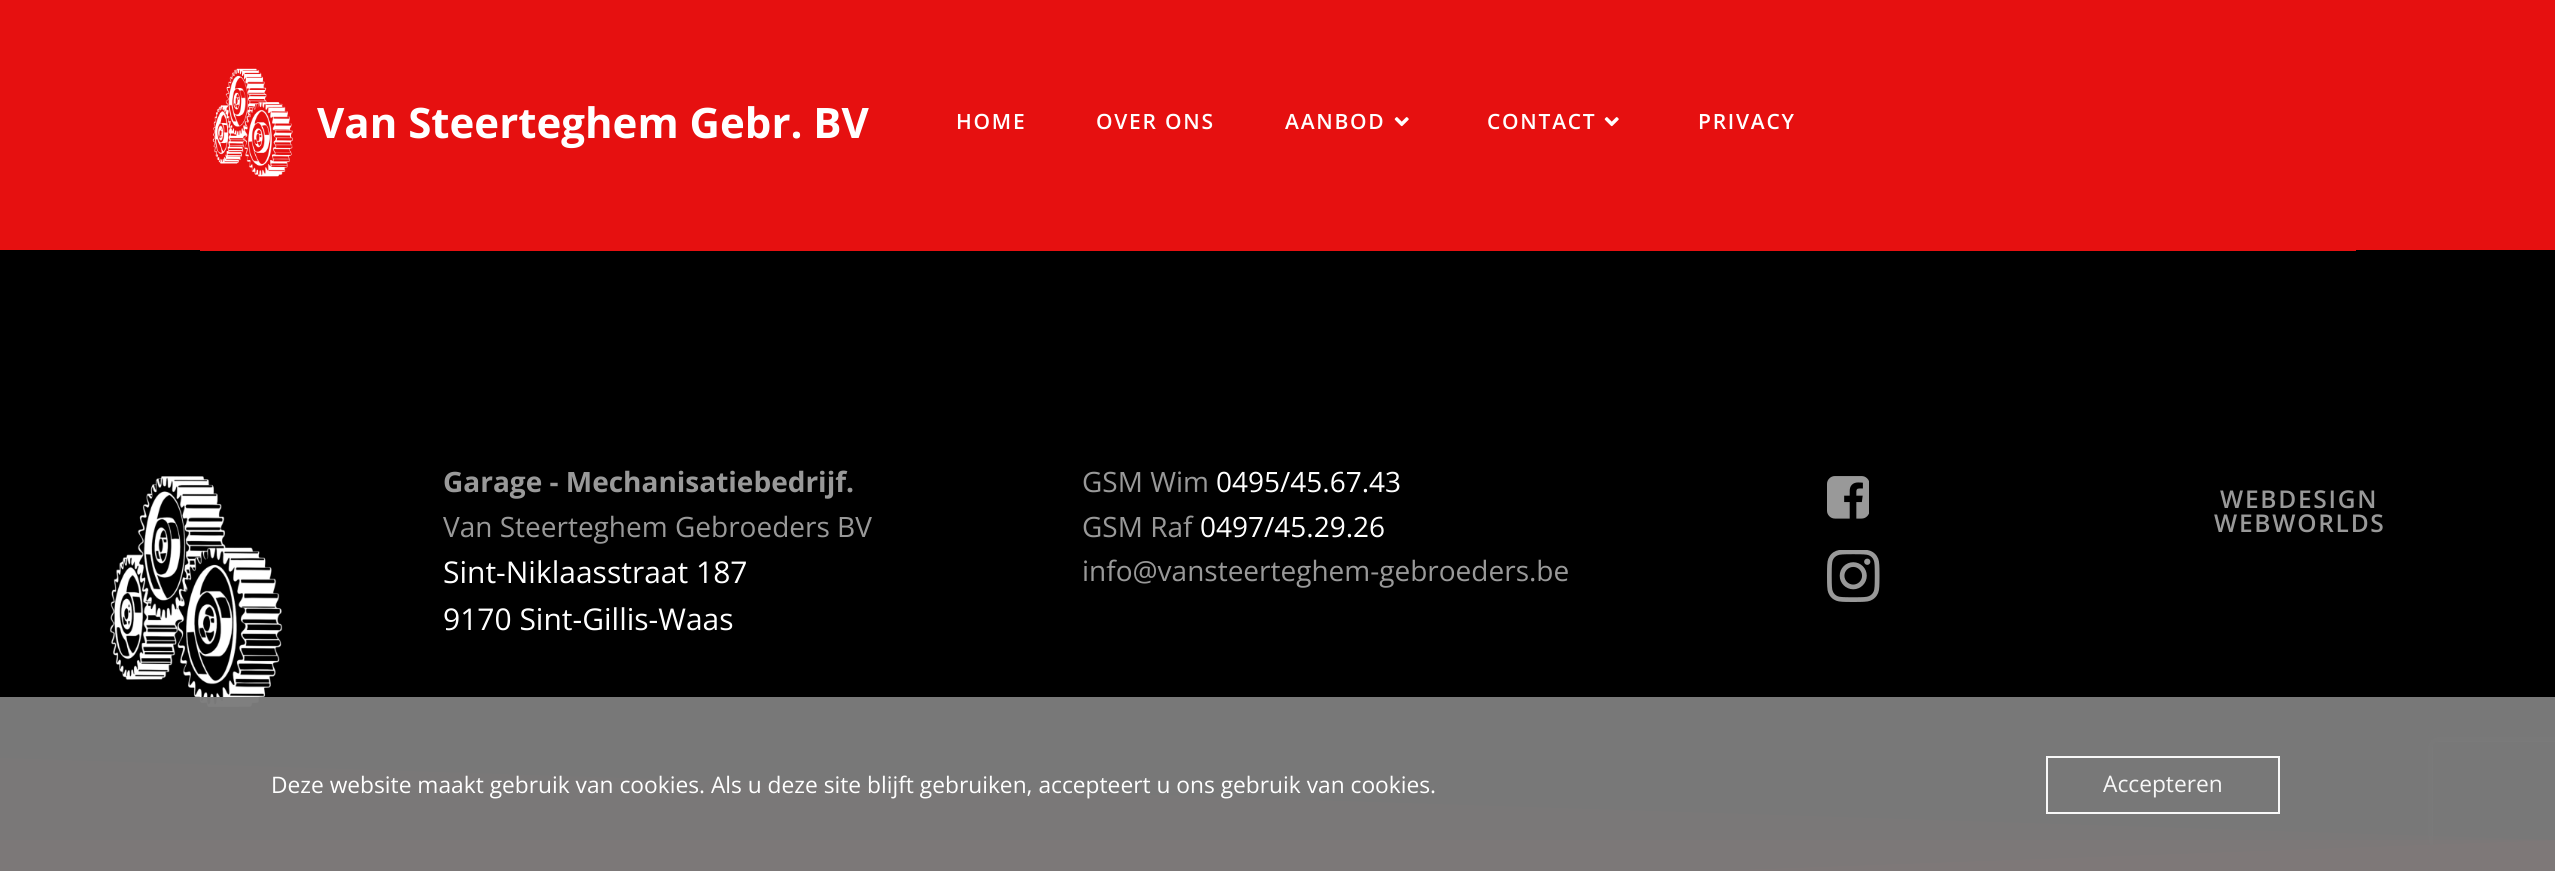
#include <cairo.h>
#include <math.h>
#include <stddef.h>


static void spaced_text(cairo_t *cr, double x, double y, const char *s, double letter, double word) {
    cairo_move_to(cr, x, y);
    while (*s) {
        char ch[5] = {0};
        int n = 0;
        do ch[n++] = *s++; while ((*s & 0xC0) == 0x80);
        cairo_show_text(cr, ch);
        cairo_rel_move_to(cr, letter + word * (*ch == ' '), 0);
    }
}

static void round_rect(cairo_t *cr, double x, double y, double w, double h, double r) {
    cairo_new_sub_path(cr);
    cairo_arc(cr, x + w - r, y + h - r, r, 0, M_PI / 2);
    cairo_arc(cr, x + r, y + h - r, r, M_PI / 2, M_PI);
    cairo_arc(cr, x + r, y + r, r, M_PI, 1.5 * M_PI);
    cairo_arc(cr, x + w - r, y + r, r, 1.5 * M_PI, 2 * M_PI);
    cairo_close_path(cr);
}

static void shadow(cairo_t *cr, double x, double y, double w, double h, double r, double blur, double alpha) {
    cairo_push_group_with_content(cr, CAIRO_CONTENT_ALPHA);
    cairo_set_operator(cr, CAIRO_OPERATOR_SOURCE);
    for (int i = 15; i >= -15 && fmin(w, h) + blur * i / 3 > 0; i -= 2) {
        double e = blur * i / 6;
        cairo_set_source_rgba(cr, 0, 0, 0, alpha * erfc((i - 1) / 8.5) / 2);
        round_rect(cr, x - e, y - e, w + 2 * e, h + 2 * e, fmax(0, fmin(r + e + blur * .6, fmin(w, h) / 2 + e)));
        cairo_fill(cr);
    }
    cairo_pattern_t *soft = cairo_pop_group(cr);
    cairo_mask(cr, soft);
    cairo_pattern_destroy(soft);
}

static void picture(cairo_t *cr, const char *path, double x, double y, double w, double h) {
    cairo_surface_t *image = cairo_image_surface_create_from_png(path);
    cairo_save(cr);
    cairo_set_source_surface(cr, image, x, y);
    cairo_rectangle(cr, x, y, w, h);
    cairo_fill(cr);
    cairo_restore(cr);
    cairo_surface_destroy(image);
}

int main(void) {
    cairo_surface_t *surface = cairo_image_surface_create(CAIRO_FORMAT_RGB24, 2555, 871);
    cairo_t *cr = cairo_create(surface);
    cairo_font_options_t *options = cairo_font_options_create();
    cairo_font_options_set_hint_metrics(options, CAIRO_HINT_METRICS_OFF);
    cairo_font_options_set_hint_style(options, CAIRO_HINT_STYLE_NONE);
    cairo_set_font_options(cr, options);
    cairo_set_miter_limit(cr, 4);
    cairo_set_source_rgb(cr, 0.902, 0.063, 0.063);
    cairo_paint(cr);
    picture(cr, "img1.png", 212, 68, 81, 109);
    cairo_select_font_face(cr, "Open Sans", CAIRO_FONT_SLANT_NORMAL, CAIRO_FONT_WEIGHT_BOLD);
    cairo_set_font_size(cr, 42);
    cairo_set_source_rgb(cr, 1, 1, 1);
    cairo_move_to(cr, 317, 138);
    cairo_show_text(cr, "Van Steerteghem Gebr. BV");
    cairo_select_font_face(cr, "Open Sans SemiBold", CAIRO_FONT_SLANT_NORMAL, CAIRO_FONT_WEIGHT_NORMAL);
    cairo_set_font_size(cr, 21);
    spaced_text(cr, 956, 129, "HOME", 1.75, 0);
    spaced_text(cr, 1096, 129, "OVER ONS", 1.75, 0);
    spaced_text(cr, 1285, 129, "AANBOD", 1.75, 0);
    picture(cr, "img2.png", 1394, 117, 15, 10);
    spaced_text(cr, 1487, 129, "CONTACT", 1.75, 0);
    picture(cr, "img2.png", 1604, 117, 15, 10);
    spaced_text(cr, 1698, 129, "PRIVACY", 1.75, 0);
    cairo_set_source_rgb(cr, 0, 0, 0);
    cairo_rectangle(cr, 0, 250, 2555, 621);
    cairo_fill(cr);
    cairo_set_source_rgb(cr, 0.902, 0.063, 0.063);
    cairo_rectangle(cr, 200, 250, 2156, 1);
    cairo_fill(cr);
    picture(cr, "img3.png", 109, 476, 174, 231);
    cairo_select_font_face(cr, "Open Sans", CAIRO_FONT_SLANT_NORMAL, CAIRO_FONT_WEIGHT_BOLD);
    cairo_set_font_size(cr, 28);
    cairo_set_source_rgb(cr, 0.6, 0.6, 0.6);
    cairo_move_to(cr, 443, 492);
    cairo_show_text(cr, "Garage - Mechanisatiebedrijf.");
    cairo_select_font_face(cr, "Open Sans", CAIRO_FONT_SLANT_NORMAL, CAIRO_FONT_WEIGHT_NORMAL);
    cairo_move_to(cr, 443, 537);
    cairo_show_text(cr, "Van Steerteghem Gebroeders BV");
    cairo_set_font_size(cr, 30);
    cairo_set_source_rgb(cr, 1, 1, 1);
    cairo_move_to(cr, 443, 583);
    cairo_show_text(cr, "Sint-Niklaasstraat 187");
    cairo_move_to(cr, 443, 630);
    cairo_show_text(cr, "9170 Sint-Gillis-Waas");
    cairo_set_font_size(cr, 28);
    cairo_set_source_rgb(cr, 0.6, 0.6, 0.6);
    cairo_move_to(cr, 1082, 492);
    cairo_show_text(cr, "GSM Wim");
    cairo_set_source_rgb(cr, 1, 1, 1);
    cairo_move_to(cr, 1216, 492);
    cairo_show_text(cr, "0495/45.67.43");
    cairo_set_source_rgb(cr, 0.6, 0.6, 0.6);
    cairo_move_to(cr, 1082, 537);
    cairo_show_text(cr, "GSM Raf");
    cairo_set_source_rgb(cr, 1, 1, 1);
    cairo_move_to(cr, 1200, 537);
    cairo_show_text(cr, "0497/45.29.26");
    cairo_set_source_rgb(cr, 0.6, 0.6, 0.6);
    cairo_move_to(cr, 1082, 581);
    cairo_show_text(cr, "info@vansteerteghem-gebroeders.be");
    picture(cr, "img4.png", 1827, 476, 42, 43);
    picture(cr, "img5.png", 1827, 550, 53, 52);
    cairo_select_font_face(cr, "Open Sans SemiBold", CAIRO_FONT_SLANT_NORMAL, CAIRO_FONT_WEIGHT_NORMAL);
    cairo_set_font_size(cr, 24.5);
    spaced_text(cr, 2220, 508, "WEBDESIGN", 1.75, 0);
    spaced_text(cr, 2214, 532, "WEBWORLDS", 1.75, 0);
    cairo_save(cr);
    cairo_set_fill_rule(cr, CAIRO_FILL_RULE_EVEN_ODD);
    cairo_new_path(cr);
    cairo_move_to(cr, 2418, 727);
    cairo_line_to(cr, 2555, 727);
    cairo_line_to(cr, 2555, 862);
    cairo_line_to(cr, 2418, 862);
    cairo_close_path(cr);
    cairo_move_to(cr, 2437, 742);
    cairo_line_to(cr, 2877, 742);
    cairo_curve_to(cr, 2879, 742, 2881, 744, 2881, 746);
    cairo_line_to(cr, 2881, 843);
    cairo_curve_to(cr, 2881, 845, 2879, 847, 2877, 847);
    cairo_line_to(cr, 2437, 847);
    cairo_curve_to(cr, 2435, 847, 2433, 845, 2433, 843);
    cairo_line_to(cr, 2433, 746);
    cairo_curve_to(cr, 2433, 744, 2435, 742, 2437, 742);
    cairo_close_path(cr);
    cairo_clip(cr);
    cairo_set_source_rgb(cr, 0.502, 0.502, 0.502);
    shadow(cr, 2433, 742, 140, 105, 4, 4.5, 1);
    cairo_restore(cr);
    cairo_set_source_rgba(cr, 0.902, 0.063, 0.063, 0.33);
    cairo_new_path(cr);
    cairo_move_to(cr, 0, 758);
    cairo_line_to(cr, 2555, 840);
    cairo_line_to(cr, 0, 840);
    cairo_close_path(cr);
    cairo_fill(cr);
    cairo_set_source_rgba(cr, 0.902, 0.063, 0.063, 0.67);
    cairo_new_path(cr);
    cairo_move_to(cr, 0, 840);
    cairo_line_to(cr, 2555, 840);
    cairo_line_to(cr, 0, 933);
    cairo_close_path(cr);
    cairo_fill(cr);
    cairo_set_source_rgb(cr, 0.902, 0.063, 0.063);
    cairo_new_path(cr);
    cairo_move_to(cr, 0, 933);
    cairo_line_to(cr, 2555, 840);
    cairo_line_to(cr, 2555, 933);
    cairo_close_path(cr);
    cairo_fill(cr);
    cairo_set_source_rgba(cr, 0.486, 0.486, 0.486, 0.97);
    cairo_rectangle(cr, 0, 697, 2555, 174);
    cairo_fill(cr);
    cairo_select_font_face(cr, "Open Sans", CAIRO_FONT_SLANT_NORMAL, CAIRO_FONT_WEIGHT_NORMAL);
    cairo_set_font_size(cr, 22.75);
    cairo_set_source_rgb(cr, 1, 1, 1);
    cairo_move_to(cr, 271, 793);
    cairo_show_text(cr, "Deze website maakt gebruik van cookies. Als u deze site blijft gebruiken, accepteert u ons gebruik van cookies.");
    cairo_rectangle(cr, 2047, 757, 232, 56);
    cairo_set_source_rgb(cr, 0.969, 0.969, 0.969);
    cairo_stroke(cr);
    cairo_move_to(cr, 2103, 792);
    cairo_show_text(cr, "Accepteren");
    cairo_surface_write_to_png(surface, "page.png");
    cairo_font_options_destroy(options);
    cairo_destroy(cr);
    cairo_surface_destroy(surface);
    return 0;
}
